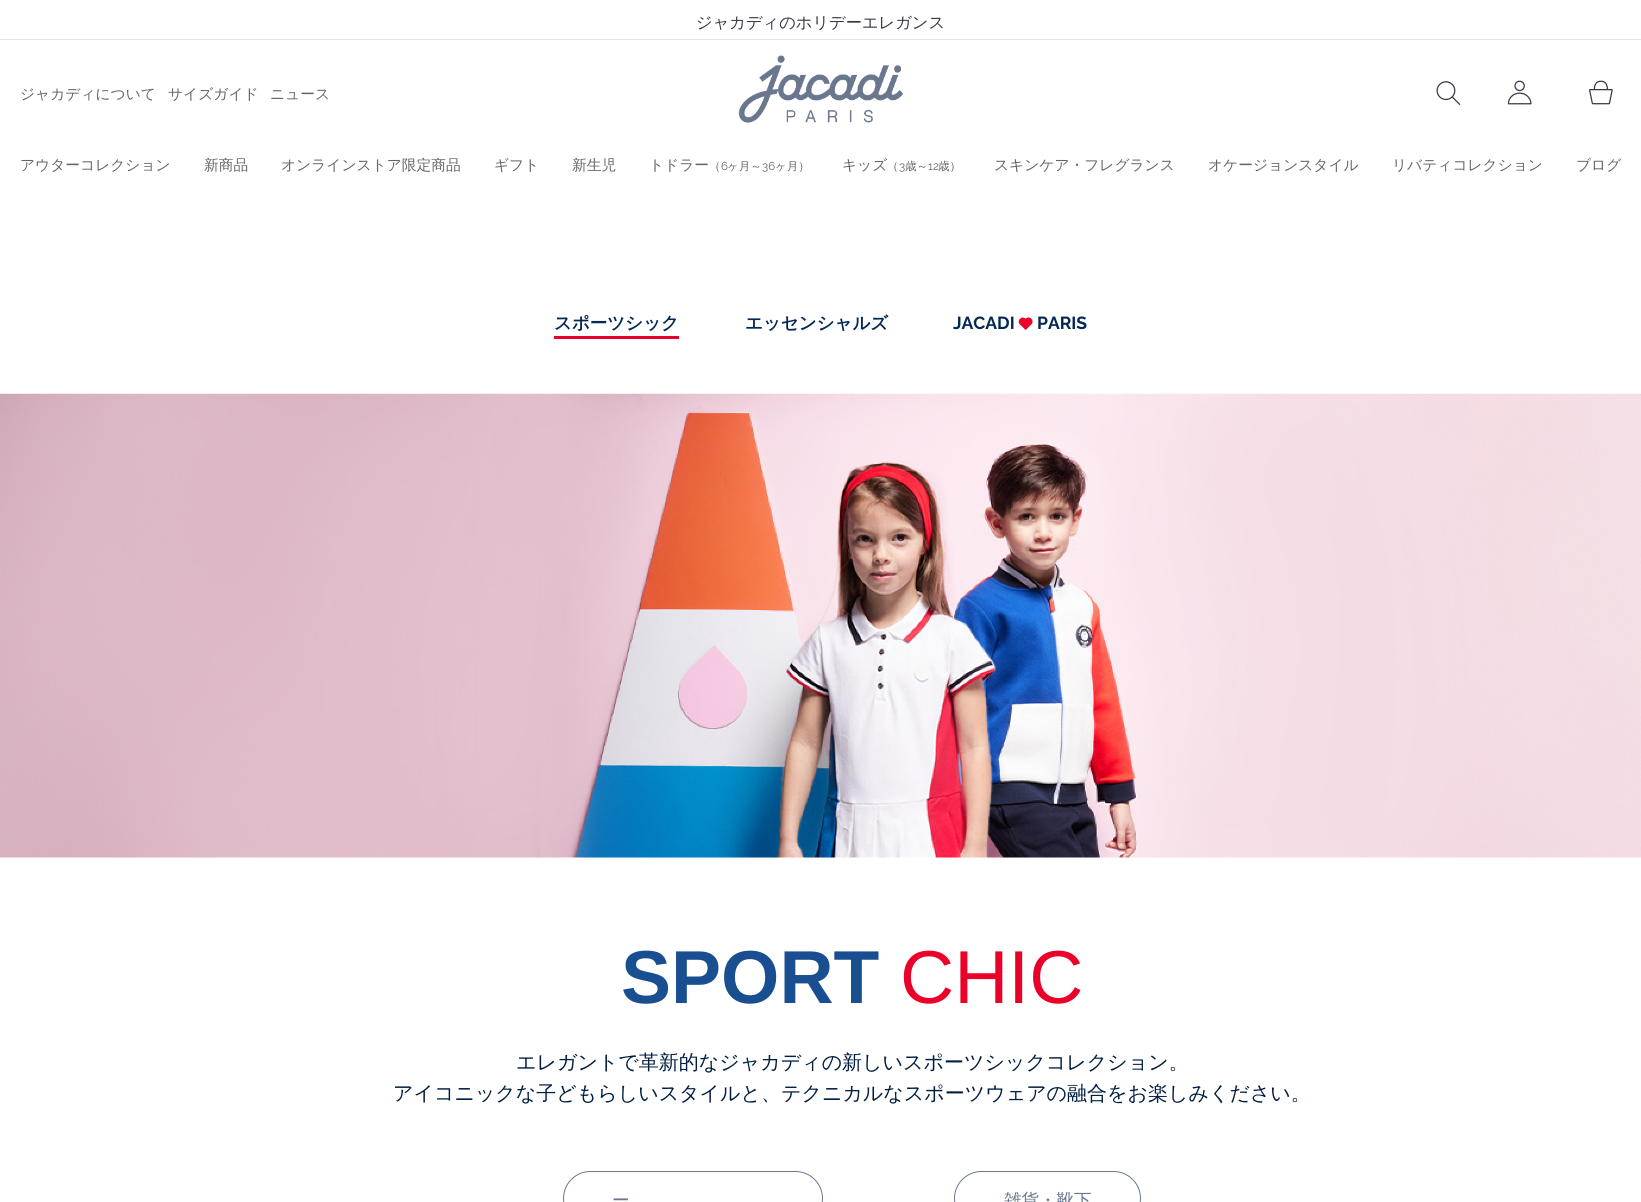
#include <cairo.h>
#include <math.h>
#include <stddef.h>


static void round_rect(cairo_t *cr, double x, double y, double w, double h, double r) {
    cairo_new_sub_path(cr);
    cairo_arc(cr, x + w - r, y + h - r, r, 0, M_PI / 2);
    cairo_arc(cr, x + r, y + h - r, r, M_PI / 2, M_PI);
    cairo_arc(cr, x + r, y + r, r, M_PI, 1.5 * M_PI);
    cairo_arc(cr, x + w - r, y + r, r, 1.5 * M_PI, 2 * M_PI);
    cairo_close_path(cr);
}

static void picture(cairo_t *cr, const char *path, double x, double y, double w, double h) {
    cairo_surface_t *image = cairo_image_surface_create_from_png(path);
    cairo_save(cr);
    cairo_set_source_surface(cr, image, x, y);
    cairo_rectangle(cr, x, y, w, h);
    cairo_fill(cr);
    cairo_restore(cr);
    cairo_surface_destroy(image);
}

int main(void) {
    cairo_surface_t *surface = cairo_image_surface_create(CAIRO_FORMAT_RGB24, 1641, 1202);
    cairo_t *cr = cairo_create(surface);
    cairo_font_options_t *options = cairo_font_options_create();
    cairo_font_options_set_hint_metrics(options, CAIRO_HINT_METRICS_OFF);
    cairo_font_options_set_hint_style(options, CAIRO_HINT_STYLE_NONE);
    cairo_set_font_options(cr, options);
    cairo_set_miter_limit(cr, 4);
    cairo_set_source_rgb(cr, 1, 1, 1);
    cairo_paint(cr);
    cairo_set_source_rgb(cr, 0.882, 0.894, 0.91);
    cairo_rectangle(cr, 0, 39, 1641, 1);
    cairo_fill(cr);
    cairo_select_font_face(cr, "WenQuanYi Zen Hei Medium", CAIRO_FONT_SLANT_NORMAL, CAIRO_FONT_WEIGHT_NORMAL);
    cairo_set_font_size(cr, 16.25);
    cairo_set_source_rgb(cr, 0.208, 0.227, 0.286);
    cairo_move_to(cr, 696, 28);
    cairo_show_text(cr, "ジャカディのホリデーエレガンス");
    cairo_set_font_size(cr, 14.75);
    cairo_set_source_rgb(cr, 0.396, 0.396, 0.396);
    cairo_move_to(cr, 20, 99);
    cairo_show_text(cr, "ジャカディについて");
    cairo_move_to(cr, 168, 99);
    cairo_show_text(cr, "サイズガイド");
    cairo_move_to(cr, 270, 99);
    cairo_show_text(cr, "ニュース");
    picture(cr, "img1.png", 738, 55, 165, 68);
    picture(cr, "img2.png", 1436, 81, 25, 24);
    picture(cr, "img3.png", 1508, 80, 24, 25);
    picture(cr, "img4.png", 1589, 80, 24, 25);
    cairo_move_to(cr, 20, 170);
    cairo_show_text(cr, "アウターコレクション");
    cairo_move_to(cr, 204, 170);
    cairo_show_text(cr, "新商品");
    cairo_move_to(cr, 281, 170);
    cairo_show_text(cr, "オンラインストア限定商品");
    cairo_move_to(cr, 494, 170);
    cairo_show_text(cr, "ギフト");
    cairo_move_to(cr, 572, 170);
    cairo_show_text(cr, "新生児");
    cairo_move_to(cr, 649, 170);
    cairo_show_text(cr, "トドラー");
    cairo_set_font_size(cr, 11.5);
    cairo_move_to(cr, 709, 170);
    cairo_show_text(cr, "（");
    cairo_select_font_face(cr, "Raleway", CAIRO_FONT_SLANT_NORMAL, CAIRO_FONT_WEIGHT_NORMAL);
    cairo_move_to(cr, 721, 170);
    cairo_show_text(cr, "6");
    cairo_select_font_face(cr, "WenQuanYi Zen Hei Medium", CAIRO_FONT_SLANT_NORMAL, CAIRO_FONT_WEIGHT_NORMAL);
    cairo_move_to(cr, 727, 170);
    cairo_show_text(cr, "ヶ月～");
    cairo_select_font_face(cr, "Raleway", CAIRO_FONT_SLANT_NORMAL, CAIRO_FONT_WEIGHT_NORMAL);
    cairo_move_to(cr, 762, 170);
    cairo_show_text(cr, "36");
    cairo_select_font_face(cr, "WenQuanYi Zen Hei Medium", CAIRO_FONT_SLANT_NORMAL, CAIRO_FONT_WEIGHT_NORMAL);
    cairo_move_to(cr, 775, 170);
    cairo_show_text(cr, "ヶ月）");
    cairo_set_font_size(cr, 14.75);
    cairo_move_to(cr, 842, 170);
    cairo_show_text(cr, "キッズ");
    cairo_set_font_size(cr, 11.5);
    cairo_move_to(cr, 887, 170);
    cairo_show_text(cr, "（");
    cairo_select_font_face(cr, "Raleway", CAIRO_FONT_SLANT_NORMAL, CAIRO_FONT_WEIGHT_NORMAL);
    cairo_move_to(cr, 899, 170);
    cairo_show_text(cr, "3");
    cairo_select_font_face(cr, "WenQuanYi Zen Hei Medium", CAIRO_FONT_SLANT_NORMAL, CAIRO_FONT_WEIGHT_NORMAL);
    cairo_move_to(cr, 905, 170);
    cairo_show_text(cr, "歳～");
    cairo_select_font_face(cr, "Raleway", CAIRO_FONT_SLANT_NORMAL, CAIRO_FONT_WEIGHT_NORMAL);
    cairo_move_to(cr, 928, 170);
    cairo_show_text(cr, "12");
    cairo_select_font_face(cr, "WenQuanYi Zen Hei Medium", CAIRO_FONT_SLANT_NORMAL, CAIRO_FONT_WEIGHT_NORMAL);
    cairo_move_to(cr, 938, 170);
    cairo_show_text(cr, "歳）");
    cairo_set_font_size(cr, 14.75);
    cairo_move_to(cr, 994, 170);
    cairo_show_text(cr, "スキンケア・フレグランス");
    cairo_move_to(cr, 1208, 170);
    cairo_show_text(cr, "オケージョンスタイル");
    cairo_move_to(cr, 1392, 170);
    cairo_show_text(cr, "リバティコレクション");
    cairo_move_to(cr, 1576, 170);
    cairo_show_text(cr, "ブログ");
    cairo_select_font_face(cr, "WenQuanYi Zen Hei", CAIRO_FONT_SLANT_NORMAL, CAIRO_FONT_WEIGHT_BOLD);
    cairo_set_font_size(cr, 17.5);
    cairo_set_source_rgb(cr, 0.016, 0.161, 0.333);
    cairo_move_to(cr, 554, 329);
    cairo_show_text(cr, "スポーツシック");
    cairo_set_source_rgb(cr, 0.894, 0, 0.169);
    cairo_rectangle(cr, 554, 336, 125, 3);
    cairo_fill(cr);
    cairo_set_source_rgb(cr, 0.016, 0.161, 0.333);
    cairo_move_to(cr, 745, 329);
    cairo_show_text(cr, "エッセンシャルズ");
    cairo_select_font_face(cr, "raleway", CAIRO_FONT_SLANT_NORMAL, CAIRO_FONT_WEIGHT_BOLD);
    cairo_move_to(cr, 953, 329);
    cairo_show_text(cr, "JACADI");
    picture(cr, "img5.png", 1018, 317, 15, 13);
    cairo_move_to(cr, 1037, 329);
    cairo_show_text(cr, "PARIS");
    picture(cr, "img6.png", 0, 393, 1641, 465);
    cairo_select_font_face(cr, "Liberation Sans", CAIRO_FONT_SLANT_NORMAL, CAIRO_FONT_WEIGHT_BOLD);
    cairo_set_font_size(cr, 75);
    cairo_set_source_rgb(cr, 0.098, 0.31, 0.565);
    cairo_move_to(cr, 621, 1003);
    cairo_show_text(cr, "SPORT");
    cairo_select_font_face(cr, "Liberation Sans", CAIRO_FONT_SLANT_NORMAL, CAIRO_FONT_WEIGHT_NORMAL);
    cairo_set_source_rgb(cr, 0.918, 0, 0.161);
    cairo_move_to(cr, 900, 1003);
    cairo_show_text(cr, "CHIC");
    cairo_select_font_face(cr, "WenQuanYi Zen Hei Medium", CAIRO_FONT_SLANT_NORMAL, CAIRO_FONT_WEIGHT_NORMAL);
    cairo_set_font_size(cr, 20);
    cairo_set_source_rgb(cr, 0.004, 0.118, 0.255);
    cairo_move_to(cr, 516, 1069);
    cairo_show_text(cr, "エレガントで革新的なジャカディの新しいスポーツシックコレクション。");
    cairo_move_to(cr, 393, 1100);
    cairo_show_text(cr, "アイコニックな子どもらしいスタイルと、テクニカルなスポーツウェアの融合をお楽しみください。");
    round_rect(cr, 563.5, 1171.5, 259, 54, 27);
    cairo_set_source_rgb(cr, 0.416, 0.467, 0.557);
    cairo_set_line_width(cr, 1);
    cairo_stroke(cr);
    cairo_set_font_size(cr, 17.5);
    cairo_move_to(cr, 612, 1206);
    cairo_show_text(cr, "ー");
    round_rect(cr, 954.5, 1171.5, 186, 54, 27);
    cairo_stroke(cr);
    cairo_move_to(cr, 1004, 1206);
    cairo_show_text(cr, "雑貨・靴下");
    cairo_surface_write_to_png(surface, "page.png");
    cairo_font_options_destroy(options);
    cairo_destroy(cr);
    cairo_surface_destroy(surface);
    return 0;
}
